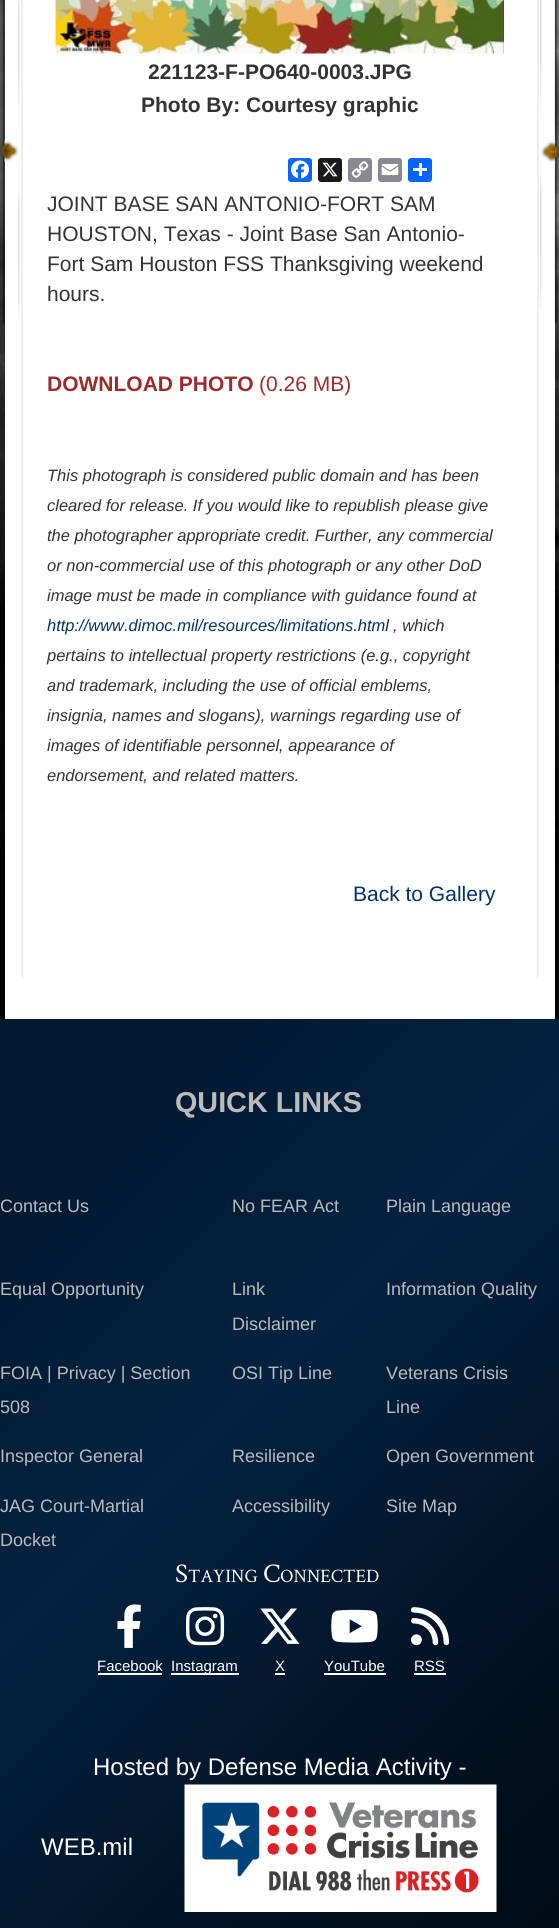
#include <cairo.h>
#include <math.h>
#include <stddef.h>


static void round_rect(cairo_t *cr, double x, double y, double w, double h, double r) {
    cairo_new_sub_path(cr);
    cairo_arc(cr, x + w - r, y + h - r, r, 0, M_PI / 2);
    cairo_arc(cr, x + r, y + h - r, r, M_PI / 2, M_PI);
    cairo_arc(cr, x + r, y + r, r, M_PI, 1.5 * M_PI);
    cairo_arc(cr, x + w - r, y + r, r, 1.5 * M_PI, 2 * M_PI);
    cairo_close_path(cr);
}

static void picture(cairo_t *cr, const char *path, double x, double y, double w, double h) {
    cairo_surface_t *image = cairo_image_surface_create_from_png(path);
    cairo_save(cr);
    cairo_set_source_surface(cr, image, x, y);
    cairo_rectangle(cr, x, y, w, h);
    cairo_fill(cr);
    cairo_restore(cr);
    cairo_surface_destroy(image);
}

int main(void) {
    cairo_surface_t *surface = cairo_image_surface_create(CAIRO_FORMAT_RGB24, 559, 1928);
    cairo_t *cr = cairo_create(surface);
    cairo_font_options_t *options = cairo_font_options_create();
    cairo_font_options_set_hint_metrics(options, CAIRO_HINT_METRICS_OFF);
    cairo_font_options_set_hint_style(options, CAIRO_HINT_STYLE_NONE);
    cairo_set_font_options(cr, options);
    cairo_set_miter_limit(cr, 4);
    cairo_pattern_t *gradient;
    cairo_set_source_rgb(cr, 1, 1, 1);
    cairo_paint(cr);
    picture(cr, "img1.png", 0, 0, 559, 1019);
    cairo_set_source_rgb(cr, 1, 1, 1);
    cairo_rectangle(cr, 5, 0, 550, 1019);
    cairo_fill(cr);
    picture(cr, "img2.png", 0, 0, 559, 324);
    cairo_set_source_rgb(cr, 0.933, 0.933, 0.933);
    cairo_rectangle(cr, 537, 0, 2, 977);
    cairo_fill(cr);
    cairo_rectangle(cr, 21, 0, 2, 977);
    cairo_fill(cr);
    picture(cr, "img3.png", 55, 0, 449, 54);
    cairo_select_font_face(cr, "Liberation Sans", CAIRO_FONT_SLANT_NORMAL, CAIRO_FONT_WEIGHT_BOLD);
    cairo_set_font_size(cr, 21);
    cairo_set_source_rgb(cr, 0.2, 0.2, 0.2);
    cairo_move_to(cr, 148, 79);
    cairo_show_text(cr, "221123-F-PO640-0003.JPG");
    cairo_move_to(cr, 141, 112);
    cairo_show_text(cr, "Photo By: Courtesy graphic");
    cairo_set_source_rgb(cr, 0.031, 0.4, 1);
    round_rect(cr, 288, 158, 24, 24, 3);
    cairo_fill(cr);
    picture(cr, "img4.png", 291, 160, 18, 19);
    cairo_set_source_rgb(cr, 0.102, 0.102, 0.102);
    round_rect(cr, 318, 158, 24, 24, 3);
    cairo_fill(cr);
    picture(cr, "img5.png", 322, 162, 16, 15);
    cairo_set_source_rgb(cr, 0.533, 0.537, 0.565);
    round_rect(cr, 348, 158, 24, 24, 3);
    cairo_fill(cr);
    picture(cr, "img6.png", 351, 161, 18, 17);
    round_rect(cr, 378, 158, 24, 24, 3);
    cairo_fill(cr);
    picture(cr, "img7.png", 381, 163, 18, 13);
    cairo_set_source_rgb(cr, 0.004, 0.4, 1);
    round_rect(cr, 408, 158, 24, 24, 3);
    cairo_fill(cr);
    cairo_set_source_rgb(cr, 1, 1, 1);
    cairo_rectangle(cr, 419, 163, 3, 13);
    cairo_fill(cr);
    cairo_rectangle(cr, 413, 168, 14, 3);
    cairo_fill(cr);
    cairo_select_font_face(cr, "Liberation Sans", CAIRO_FONT_SLANT_NORMAL, CAIRO_FONT_WEIGHT_NORMAL);
    cairo_set_source_rgb(cr, 0.2, 0.2, 0.2);
    cairo_move_to(cr, 47, 211);
    cairo_show_text(cr, "JOINT BASE SAN ANTONIO-FORT SAM");
    cairo_move_to(cr, 47, 241);
    cairo_show_text(cr, "HOUSTON, Texas - Joint Base San Antonio-");
    cairo_move_to(cr, 47, 271);
    cairo_show_text(cr, "Fort Sam Houston FSS Thanksgiving weekend");
    cairo_move_to(cr, 47, 301);
    cairo_show_text(cr, "hours.");
    cairo_select_font_face(cr, "Liberation Sans", CAIRO_FONT_SLANT_NORMAL, CAIRO_FONT_WEIGHT_BOLD);
    cairo_set_source_rgb(cr, 0.604, 0.176, 0.173);
    cairo_move_to(cr, 47, 391);
    cairo_show_text(cr, "DOWNLOAD PHOTO");
    cairo_select_font_face(cr, "Liberation Sans", CAIRO_FONT_SLANT_NORMAL, CAIRO_FONT_WEIGHT_NORMAL);
    cairo_move_to(cr, 259, 391);
    cairo_show_text(cr, "(0.26 MB)");
    cairo_select_font_face(cr, "Liberation Sans", CAIRO_FONT_SLANT_ITALIC, CAIRO_FONT_WEIGHT_NORMAL);
    cairo_set_font_size(cr, 16.5);
    cairo_set_source_rgb(cr, 0.2, 0.2, 0.2);
    cairo_move_to(cr, 47, 481);
    cairo_show_text(cr, "This photograph is considered public domain and has been");
    cairo_move_to(cr, 47, 511);
    cairo_show_text(cr, "cleared for release. If you would like to republish please give");
    cairo_move_to(cr, 47, 541);
    cairo_show_text(cr, "the photographer appropriate credit. Further, any commercial");
    cairo_move_to(cr, 47, 571);
    cairo_show_text(cr, "or non-commercial use of this photograph or any other DoD");
    cairo_move_to(cr, 47, 601);
    cairo_show_text(cr, "image must be made in compliance with guidance found at");
    cairo_set_source_rgb(cr, 0, 0.2, 0.4);
    cairo_move_to(cr, 47, 631);
    cairo_show_text(cr, "http://www.dimoc.mil/resources/limitations.html");
    cairo_set_source_rgb(cr, 0.2, 0.2, 0.2);
    cairo_move_to(cr, 393, 631);
    cairo_show_text(cr, ", which");
    cairo_move_to(cr, 47, 661);
    cairo_show_text(cr, "pertains to intellectual property restrictions (e.g., copyright");
    cairo_move_to(cr, 47, 691);
    cairo_show_text(cr, "and trademark, including the use of official emblems,");
    cairo_move_to(cr, 47, 721);
    cairo_show_text(cr, "insignia, names and slogans), warnings regarding use of");
    cairo_move_to(cr, 47, 751);
    cairo_show_text(cr, "images of identifiable personnel, appearance of");
    cairo_move_to(cr, 47, 781);
    cairo_show_text(cr, "endorsement, and related matters.");
    cairo_select_font_face(cr, "Liberation Sans", CAIRO_FONT_SLANT_NORMAL, CAIRO_FONT_WEIGHT_NORMAL);
    cairo_set_font_size(cr, 21);
    cairo_set_source_rgb(cr, 0, 0.2, 0.4);
    cairo_move_to(cr, 353, 901);
    cairo_show_text(cr, "Back to Gallery");
    gradient = cairo_pattern_create_linear(-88, 1106, 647, 1841);
    cairo_pattern_add_color_stop_rgba(gradient, 0, 0.004, 0.098, 0.188, 1);
    cairo_pattern_add_color_stop_rgba(gradient, 0.13, 0.004, 0.098, 0.188, 1);
    cairo_pattern_add_color_stop_rgba(gradient, 0.43, 0.012, 0.133, 0.251, 1);
    cairo_pattern_add_color_stop_rgba(gradient, 0.79, 0.004, 0.067, 0.133, 1);
    cairo_pattern_add_color_stop_rgba(gradient, 1, 0, 0.043, 0.086, 1);
    cairo_set_source(cr, gradient);
    cairo_pattern_destroy(gradient);
    cairo_rectangle(cr, 0, 1019, 559, 909);
    cairo_fill(cr);
    cairo_select_font_face(cr, "Liberation Sans", CAIRO_FONT_SLANT_NORMAL, CAIRO_FONT_WEIGHT_BOLD);
    cairo_set_font_size(cr, 28.75);
    cairo_set_source_rgb(cr, 0.733, 0.733, 0.733);
    cairo_move_to(cr, 175, 1112);
    cairo_show_text(cr, "QUICK LINKS");
    cairo_select_font_face(cr, "Liberation Sans", CAIRO_FONT_SLANT_NORMAL, CAIRO_FONT_WEIGHT_NORMAL);
    cairo_set_font_size(cr, 18);
    cairo_move_to(cr, 0, 1212);
    cairo_show_text(cr, "Contact Us");
    cairo_move_to(cr, 232, 1212);
    cairo_show_text(cr, "No FEAR Act");
    cairo_move_to(cr, 386, 1212);
    cairo_show_text(cr, "Plain Language");
    cairo_move_to(cr, 0, 1295);
    cairo_show_text(cr, "Equal Opportunity");
    cairo_move_to(cr, 232, 1295);
    cairo_show_text(cr, "Link");
    cairo_move_to(cr, 232, 1330);
    cairo_show_text(cr, "Disclaimer");
    cairo_move_to(cr, 386, 1295);
    cairo_show_text(cr, "Information Quality");
    cairo_move_to(cr, 0, 1379);
    cairo_show_text(cr, "FOIA | Privacy | Section");
    cairo_move_to(cr, 0, 1413);
    cairo_show_text(cr, "508");
    cairo_move_to(cr, 232, 1379);
    cairo_show_text(cr, "OSI Tip Line");
    cairo_move_to(cr, 386, 1379);
    cairo_show_text(cr, "Veterans Crisis");
    cairo_move_to(cr, 386, 1413);
    cairo_show_text(cr, "Line");
    cairo_move_to(cr, 0, 1462);
    cairo_show_text(cr, "Inspector General");
    cairo_move_to(cr, 232, 1462);
    cairo_show_text(cr, "Resilience");
    cairo_move_to(cr, 386, 1462);
    cairo_show_text(cr, "Open Government");
    cairo_move_to(cr, 0, 1512);
    cairo_show_text(cr, "JAG Court-Martial");
    cairo_move_to(cr, 0, 1546);
    cairo_show_text(cr, "Docket");
    cairo_move_to(cr, 232, 1512);
    cairo_show_text(cr, "Accessibility");
    cairo_move_to(cr, 386, 1512);
    cairo_show_text(cr, "Site Map");
    cairo_select_font_face(cr, "Crimson Text", CAIRO_FONT_SLANT_NORMAL, CAIRO_FONT_WEIGHT_NORMAL);
    cairo_set_font_size(cr, 27);
    cairo_set_source_rgb(cr, 1, 1, 1);
    cairo_move_to(cr, 175, 1582);
    cairo_show_text(cr, "S");
    cairo_set_font_size(cr, 19);
    cairo_move_to(cr, 188, 1582);
    cairo_show_text(cr, "TAYING");
    cairo_set_font_size(cr, 27);
    cairo_move_to(cr, 263, 1582);
    cairo_show_text(cr, "C");
    cairo_set_font_size(cr, 19);
    cairo_move_to(cr, 280, 1582);
    cairo_show_text(cr, "ONNECTED");
    picture(cr, "img8.png", 117, 1604, 24, 44);
    cairo_select_font_face(cr, "Liberation Sans", CAIRO_FONT_SLANT_NORMAL, CAIRO_FONT_WEIGHT_NORMAL);
    cairo_set_font_size(cr, 15);
    cairo_move_to(cr, 97, 1671);
    cairo_show_text(cr, "Facebook");
    cairo_rectangle(cr, 98, 1673, 64, 2);
    cairo_fill(cr);
    picture(cr, "img9.png", 186, 1607, 39, 39);
    cairo_rectangle(cr, 171, 1673, 68, 2);
    cairo_fill(cr);
    cairo_move_to(cr, 171, 1671);
    cairo_show_text(cr, "Instagram");
    picture(cr, "img10.png", 260, 1608, 40, 36);
    cairo_move_to(cr, 275, 1671);
    cairo_show_text(cr, "X");
    cairo_rectangle(cr, 275, 1673, 10, 2);
    cairo_fill(cr);
    picture(cr, "img11.png", 331, 1609, 47, 34);
    cairo_move_to(cr, 324, 1671);
    cairo_show_text(cr, "YouTube");
    cairo_rectangle(cr, 324, 1673, 62, 2);
    cairo_fill(cr);
    picture(cr, "img12.png", 411, 1607, 39, 39);
    cairo_move_to(cr, 414, 1671);
    cairo_show_text(cr, "RSS");
    cairo_rectangle(cr, 414, 1673, 32, 2);
    cairo_fill(cr);
    cairo_set_font_size(cr, 24);
    cairo_move_to(cr, 93, 1775);
    cairo_show_text(cr, "Hosted by Defense Media Activity -");
    cairo_move_to(cr, 41, 1855);
    cairo_show_text(cr, "WEB.mil");
    picture(cr, "img13.png", 184, 1784, 313, 128);
    cairo_surface_write_to_png(surface, "page.png");
    cairo_font_options_destroy(options);
    cairo_destroy(cr);
    cairo_surface_destroy(surface);
    return 0;
}
